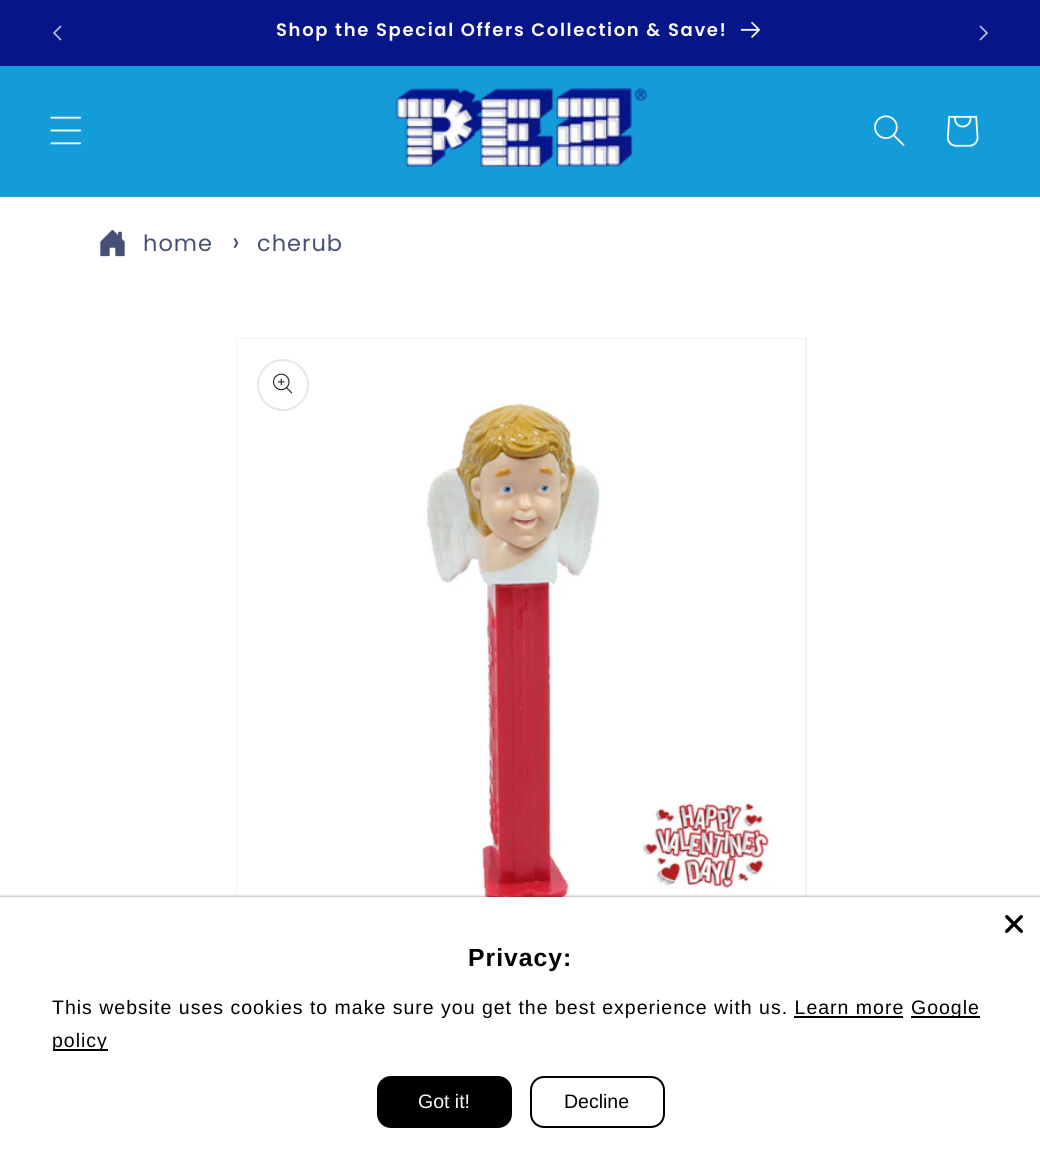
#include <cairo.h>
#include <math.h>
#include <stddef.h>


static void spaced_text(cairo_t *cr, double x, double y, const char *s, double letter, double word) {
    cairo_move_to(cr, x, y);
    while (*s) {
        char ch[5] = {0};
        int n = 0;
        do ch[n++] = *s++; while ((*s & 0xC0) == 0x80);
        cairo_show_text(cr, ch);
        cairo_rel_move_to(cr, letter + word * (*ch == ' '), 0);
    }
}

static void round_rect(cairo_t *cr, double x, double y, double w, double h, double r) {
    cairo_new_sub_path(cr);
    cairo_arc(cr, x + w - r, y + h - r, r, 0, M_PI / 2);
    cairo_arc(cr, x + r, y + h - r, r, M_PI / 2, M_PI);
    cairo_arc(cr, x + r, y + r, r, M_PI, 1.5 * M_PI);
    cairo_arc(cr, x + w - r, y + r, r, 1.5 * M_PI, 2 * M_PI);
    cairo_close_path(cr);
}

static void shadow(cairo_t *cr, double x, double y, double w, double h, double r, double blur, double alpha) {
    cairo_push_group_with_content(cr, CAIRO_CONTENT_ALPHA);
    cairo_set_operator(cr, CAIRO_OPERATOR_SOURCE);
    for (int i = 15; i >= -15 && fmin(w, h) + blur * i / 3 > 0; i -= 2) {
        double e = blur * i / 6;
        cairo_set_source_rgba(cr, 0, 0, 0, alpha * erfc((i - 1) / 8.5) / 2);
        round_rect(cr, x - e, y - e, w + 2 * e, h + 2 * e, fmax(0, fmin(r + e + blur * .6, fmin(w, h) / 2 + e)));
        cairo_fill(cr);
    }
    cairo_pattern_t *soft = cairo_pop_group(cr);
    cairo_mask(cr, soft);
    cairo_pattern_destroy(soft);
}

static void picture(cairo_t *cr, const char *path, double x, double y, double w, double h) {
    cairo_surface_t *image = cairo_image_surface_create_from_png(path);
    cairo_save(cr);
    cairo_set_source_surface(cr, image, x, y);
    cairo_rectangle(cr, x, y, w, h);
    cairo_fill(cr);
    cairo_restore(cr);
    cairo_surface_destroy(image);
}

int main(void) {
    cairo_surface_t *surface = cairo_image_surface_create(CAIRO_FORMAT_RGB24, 1040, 1168);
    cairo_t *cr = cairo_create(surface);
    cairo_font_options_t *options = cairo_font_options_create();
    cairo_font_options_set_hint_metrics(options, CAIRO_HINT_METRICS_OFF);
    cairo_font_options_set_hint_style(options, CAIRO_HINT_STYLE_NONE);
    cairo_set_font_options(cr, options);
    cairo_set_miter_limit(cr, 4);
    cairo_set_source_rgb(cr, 1, 1, 1);
    cairo_paint(cr);
    cairo_set_source_rgb(cr, 0.027, 0.086, 0.537);
    cairo_rectangle(cr, 0, 0, 1040, 66);
    cairo_fill(cr);
    picture(cr, "img1.png", 53, 25, 9, 16);
    cairo_select_font_face(cr, "Poppins SemiBold", CAIRO_FONT_SLANT_NORMAL, CAIRO_FONT_WEIGHT_NORMAL);
    cairo_set_font_size(cr, 18);
    cairo_set_source_rgb(cr, 0.98, 0.98, 0.98);
    spaced_text(cr, 276, 36, "Shop the Special Offers Collection & Save!", 1.65, 0);
    picture(cr, "img2.png", 741, 21, 19, 17);
    picture(cr, "img3.png", 979, 25, 9, 16);
    cairo_set_source_rgb(cr, 0.078, 0.612, 0.847);
    cairo_rectangle(cr, 0, 66, 1040, 131);
    cairo_fill(cr);
    picture(cr, "img4.png", 50, 116, 31, 29);
    picture(cr, "img5.png", 395, 88, 252, 79);
    picture(cr, "img6.png", 874, 115, 31, 31);
    picture(cr, "img7.png", 946, 115, 33, 32);
    picture(cr, "img8.png", 100, 229, 25, 28);
    cairo_select_font_face(cr, "Poppins", CAIRO_FONT_SLANT_NORMAL, CAIRO_FONT_WEIGHT_NORMAL);
    cairo_set_font_size(cr, 22.5);
    cairo_set_source_rgb(cr, 0.275, 0.314, 0.463);
    spaced_text(cr, 143, 251, "home", 1, 0);
    cairo_set_font_size(cr, 27);
    spaced_text(cr, 232, 251, "›", 1, 0);
    cairo_set_font_size(cr, 22.5);
    spaced_text(cr, 257, 251, "cherub", 1, 0);
    cairo_rectangle(cr, 237, 339, 569, 569);
    cairo_set_source_rgb(cr, 0.953, 0.953, 0.953);
    cairo_stroke(cr);
    picture(cr, "img9.png", 237, 339, 568, 558);
    cairo_arc(cr, 283, 385, 25, 0, 2 * M_PI);
    cairo_set_source_rgb(cr, 0.906, 0.906, 0.906);
    cairo_stroke(cr);
    picture(cr, "img10.png", 273, 373, 20, 21);
    cairo_set_source_rgb(cr, 0, 0, 0);
    shadow(cr, 0, 897, 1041, 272, 0, 1.5, 0.5);
    cairo_set_source_rgb(cr, 1, 1, 1);
    cairo_rectangle(cr, 0, 897, 1040, 271);
    cairo_fill(cr);
    picture(cr, "img11.png", 1005, 915, 18, 18);
    cairo_select_font_face(cr, "Liberation Sans", CAIRO_FONT_SLANT_NORMAL, CAIRO_FONT_WEIGHT_BOLD);
    cairo_set_font_size(cr, 24.75);
    cairo_set_source_rgb(cr, 0, 0, 0);
    spaced_text(cr, 468, 966, "Privacy:", 1, 0);
    cairo_select_font_face(cr, "Liberation Sans", CAIRO_FONT_SLANT_NORMAL, CAIRO_FONT_WEIGHT_NORMAL);
    cairo_set_font_size(cr, 19.5);
    spaced_text(cr, 52, 1014, "This website uses cookies to make sure you get the best experience with us. Learn more", 1, 0);
    cairo_rectangle(cr, 911, 1016, 69, 2);
    cairo_fill(cr);
    spaced_text(cr, 911, 1014, "Google", 1, 0);
    cairo_rectangle(cr, 794, 1016, 109, 2);
    cairo_fill(cr);
    cairo_rectangle(cr, 53, 1049, 55, 2);
    cairo_fill(cr);
    spaced_text(cr, 52, 1047, "policy", 1, 0);
    round_rect(cr, 377, 1076, 135, 52, 14);
    cairo_fill(cr);
    cairo_set_source_rgb(cr, 0.98, 0.98, 0.98);
    cairo_move_to(cr, 418, 1108);
    cairo_show_text(cr, "Got it!");
    round_rect(cr, 531, 1077, 133, 50, 13);
    cairo_set_source_rgb(cr, 0, 0, 0);
    cairo_stroke(cr);
    cairo_move_to(cr, 564, 1108);
    cairo_show_text(cr, "Decline");
    cairo_surface_write_to_png(surface, "page.png");
    cairo_font_options_destroy(options);
    cairo_destroy(cr);
    cairo_surface_destroy(surface);
    return 0;
}
